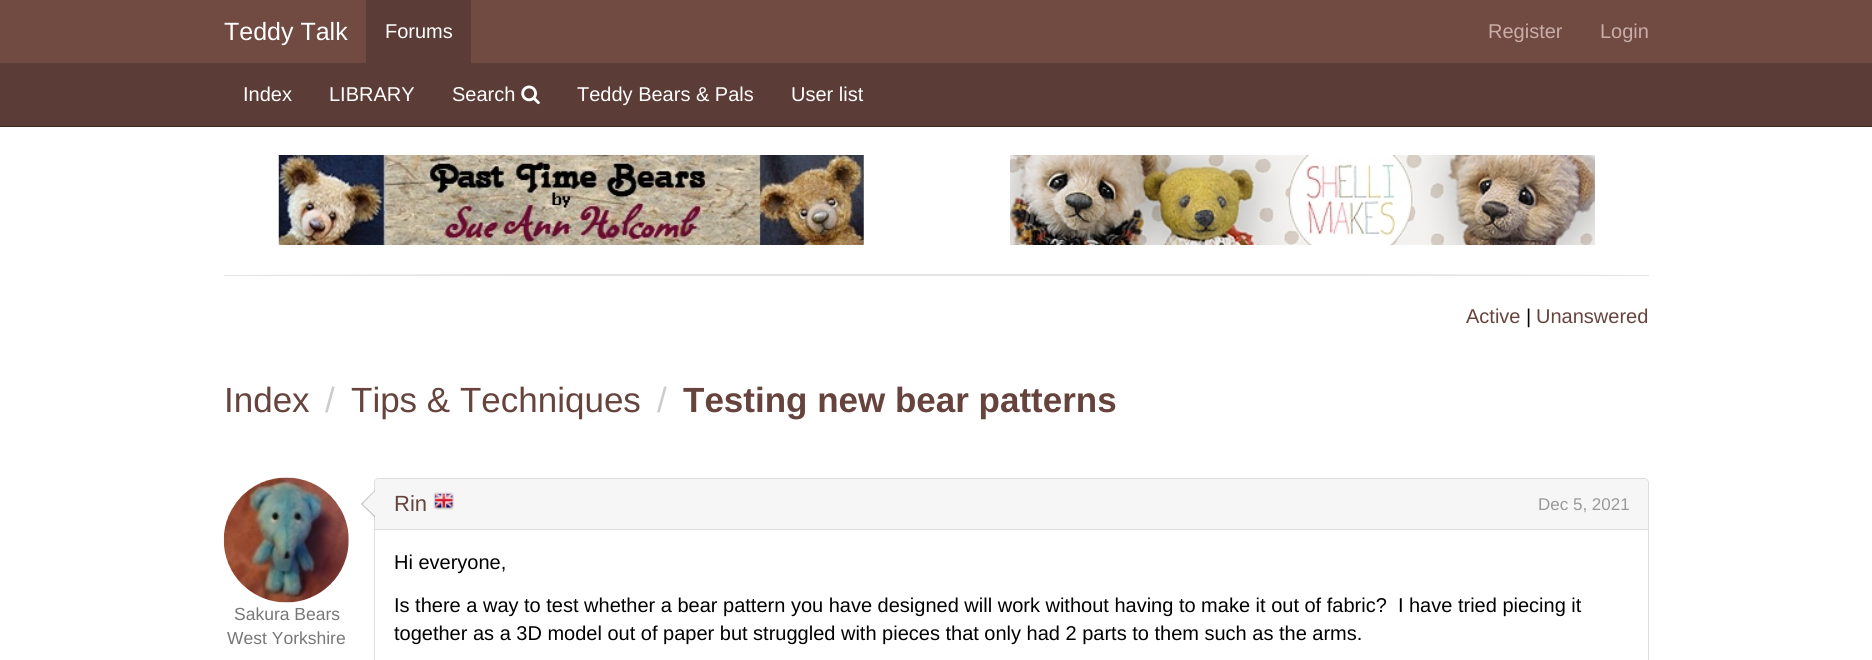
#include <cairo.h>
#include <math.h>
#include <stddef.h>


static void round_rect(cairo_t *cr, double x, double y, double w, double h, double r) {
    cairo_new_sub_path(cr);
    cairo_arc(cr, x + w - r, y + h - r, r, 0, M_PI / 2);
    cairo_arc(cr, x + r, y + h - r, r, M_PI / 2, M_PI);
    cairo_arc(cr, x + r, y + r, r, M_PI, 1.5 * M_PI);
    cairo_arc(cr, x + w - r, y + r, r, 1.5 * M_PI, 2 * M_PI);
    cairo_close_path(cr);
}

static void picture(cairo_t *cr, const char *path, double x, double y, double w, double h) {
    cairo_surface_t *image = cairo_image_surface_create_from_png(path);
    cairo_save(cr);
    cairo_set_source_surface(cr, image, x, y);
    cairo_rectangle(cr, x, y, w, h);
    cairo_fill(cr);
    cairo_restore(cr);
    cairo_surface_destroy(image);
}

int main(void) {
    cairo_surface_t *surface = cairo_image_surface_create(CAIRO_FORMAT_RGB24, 1872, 660);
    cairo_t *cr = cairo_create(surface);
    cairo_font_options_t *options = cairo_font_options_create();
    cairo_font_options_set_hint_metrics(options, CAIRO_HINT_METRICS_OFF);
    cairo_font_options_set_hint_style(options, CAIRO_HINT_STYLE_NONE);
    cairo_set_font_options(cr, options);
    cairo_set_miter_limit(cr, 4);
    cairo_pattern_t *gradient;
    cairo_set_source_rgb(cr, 1, 1, 1);
    cairo_paint(cr);
    cairo_set_source_rgb(cr, 0.443, 0.29, 0.259);
    cairo_rectangle(cr, 0, 0, 1872, 63);
    cairo_fill(cr);
    cairo_select_font_face(cr, "Liberation Sans", CAIRO_FONT_SLANT_NORMAL, CAIRO_FONT_WEIGHT_NORMAL);
    cairo_set_font_size(cr, 25);
    cairo_set_source_rgb(cr, 1, 1, 1);
    cairo_move_to(cr, 224, 40);
    cairo_show_text(cr, "Teddy Talk");
    cairo_set_source_rgb(cr, 0.361, 0.235, 0.212);
    cairo_rectangle(cr, 366, 0, 105, 63);
    cairo_fill(cr);
    cairo_set_font_size(cr, 20);
    cairo_set_source_rgb(cr, 1, 1, 1);
    cairo_move_to(cr, 385, 38);
    cairo_show_text(cr, "Forums");
    cairo_set_source_rgb(cr, 0.788, 0.678, 0.659);
    cairo_move_to(cr, 1488, 38);
    cairo_show_text(cr, "Register");
    cairo_move_to(cr, 1600, 38);
    cairo_show_text(cr, "Login");
    cairo_set_source_rgb(cr, 0.361, 0.235, 0.212);
    cairo_rectangle(cr, 0, 63, 1872, 63);
    cairo_fill(cr);
    cairo_set_source_rgb(cr, 0.235, 0.153, 0.137);
    cairo_rectangle(cr, 0, 126, 1872, 1);
    cairo_fill(cr);
    cairo_set_source_rgb(cr, 1, 1, 1);
    cairo_move_to(cr, 243, 101);
    cairo_show_text(cr, "Index");
    cairo_move_to(cr, 329, 101);
    cairo_show_text(cr, "LIBRARY");
    cairo_move_to(cr, 452, 101);
    cairo_show_text(cr, "Search");
    picture(cr, "img1.png", 521, 85, 19, 20);
    cairo_move_to(cr, 577, 101);
    cairo_show_text(cr, "Teddy Bears & Pals");
    cairo_move_to(cr, 791, 101);
    cairo_show_text(cr, "User list");
    picture(cr, "img2.png", 278, 155, 586, 90);
    picture(cr, "img3.png", 1010, 155, 585, 90);
    cairo_set_source_rgb(cr, 0.894, 0.894, 0.894);
    cairo_rectangle(cr, 224, 275, 1425, 1);
    cairo_fill(cr);
    gradient = cairo_pattern_create_linear(224, 274, 1649, 274);
    cairo_pattern_add_color_stop_rgba(gradient, 0, 1, 1, 1, 1);
    cairo_pattern_add_color_stop_rgba(gradient, 0.2, 0.894, 0.894, 0.894, 1);
    cairo_pattern_add_color_stop_rgba(gradient, 0.8, 0.894, 0.894, 0.894, 1);
    cairo_pattern_add_color_stop_rgba(gradient, 1, 1, 1, 1, 1);
    cairo_set_source(cr, gradient);
    cairo_pattern_destroy(gradient);
    cairo_rectangle(cr, 250, 274, 1373, 1);
    cairo_fill(cr);
    cairo_set_source_rgb(cr, 0.4, 0.267, 0.239);
    cairo_move_to(cr, 1466, 323);
    cairo_show_text(cr, "Active");
    cairo_set_source_rgb(cr, 0, 0, 0);
    cairo_move_to(cr, 1526, 323);
    cairo_show_text(cr, "|");
    cairo_set_source_rgb(cr, 0.4, 0.267, 0.239);
    cairo_move_to(cr, 1536, 323);
    cairo_show_text(cr, "Unanswered");
    cairo_set_font_size(cr, 35);
    cairo_move_to(cr, 224, 412);
    cairo_show_text(cr, "Index");
    cairo_set_source_rgb(cr, 0.8, 0.8, 0.8);
    cairo_move_to(cr, 325, 412);
    cairo_show_text(cr, "/");
    cairo_set_source_rgb(cr, 0.4, 0.267, 0.239);
    cairo_move_to(cr, 351, 412);
    cairo_show_text(cr, "Tips & Techniques");
    cairo_set_source_rgb(cr, 0.8, 0.8, 0.8);
    cairo_move_to(cr, 657, 412);
    cairo_show_text(cr, "/");
    cairo_select_font_face(cr, "Liberation Sans", CAIRO_FONT_SLANT_NORMAL, CAIRO_FONT_WEIGHT_BOLD);
    cairo_set_source_rgb(cr, 0.4, 0.267, 0.239);
    cairo_move_to(cr, 683, 412);
    cairo_show_text(cr, "Testing new bear patterns");
    picture(cr, "img4.png", 223, 477, 126, 126);
    cairo_select_font_face(cr, "Liberation Sans", CAIRO_FONT_SLANT_NORMAL, CAIRO_FONT_WEIGHT_NORMAL);
    cairo_set_font_size(cr, 17.5);
    cairo_set_source_rgb(cr, 0.467, 0.467, 0.467);
    cairo_move_to(cr, 234, 620);
    cairo_show_text(cr, "Sakura Bears");
    cairo_move_to(cr, 227, 644);
    cairo_show_text(cr, "West Yorkshire");
    round_rect(cr, 374.5, 478.5, 1274, 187, 4.5);
    cairo_set_source_rgb(cr, 0.867, 0.867, 0.867);
    cairo_set_line_width(cr, 1);
    cairo_stroke(cr);
    cairo_set_source_rgba(cr, 0, 0, 0, 0.25);
    cairo_new_path(cr);
    cairo_move_to(cr, 375, 490);
    cairo_line_to(cr, 375, 517.5);
    cairo_line_to(cr, 361, 504);
    cairo_close_path(cr);
    cairo_fill(cr);
    cairo_set_source_rgb(cr, 0.961, 0.961, 0.961);
    cairo_new_path(cr);
    cairo_move_to(cr, 375, 491);
    cairo_line_to(cr, 375, 516);
    cairo_line_to(cr, 362.5, 504);
    cairo_close_path(cr);
    cairo_fill(cr);
    cairo_new_path(cr);
    cairo_move_to(cr, 379, 479);
    cairo_line_to(cr, 1644, 479);
    cairo_curve_to(cr, 1646, 479, 1648, 481, 1648, 483);
    cairo_line_to(cr, 1648, 530);
    cairo_line_to(cr, 375, 530);
    cairo_line_to(cr, 375, 483);
    cairo_curve_to(cr, 375, 481, 377, 479, 379, 479);
    cairo_close_path(cr);
    cairo_fill(cr);
    cairo_set_source_rgb(cr, 0.867, 0.867, 0.867);
    cairo_rectangle(cr, 375, 529, 1273, 1);
    cairo_fill(cr);
    cairo_set_font_size(cr, 22);
    cairo_set_source_rgb(cr, 0.4, 0.267, 0.239);
    cairo_move_to(cr, 394, 511);
    cairo_show_text(cr, "Rin");
    picture(cr, "img5.png", 433, 492, 21, 18);
    cairo_set_font_size(cr, 17);
    cairo_set_source_rgb(cr, 0.6, 0.6, 0.6);
    cairo_move_to(cr, 1538, 510);
    cairo_show_text(cr, "Dec 5, 2021");
    cairo_set_font_size(cr, 20);
    cairo_set_source_rgb(cr, 0, 0, 0);
    cairo_move_to(cr, 394, 569);
    cairo_show_text(cr, "Hi everyone,");
    cairo_move_to(cr, 394, 612);
    cairo_show_text(cr, "Is there a way to test whether a bear pattern you have designed will work without having to make it out of fabric?  I have tried piecing it");
    cairo_move_to(cr, 394, 640);
    cairo_show_text(cr, "together as a 3D model out of paper but struggled with pieces that only had 2 parts to them such as the arms.");
    cairo_surface_write_to_png(surface, "page.png");
    cairo_font_options_destroy(options);
    cairo_destroy(cr);
    cairo_surface_destroy(surface);
    return 0;
}
